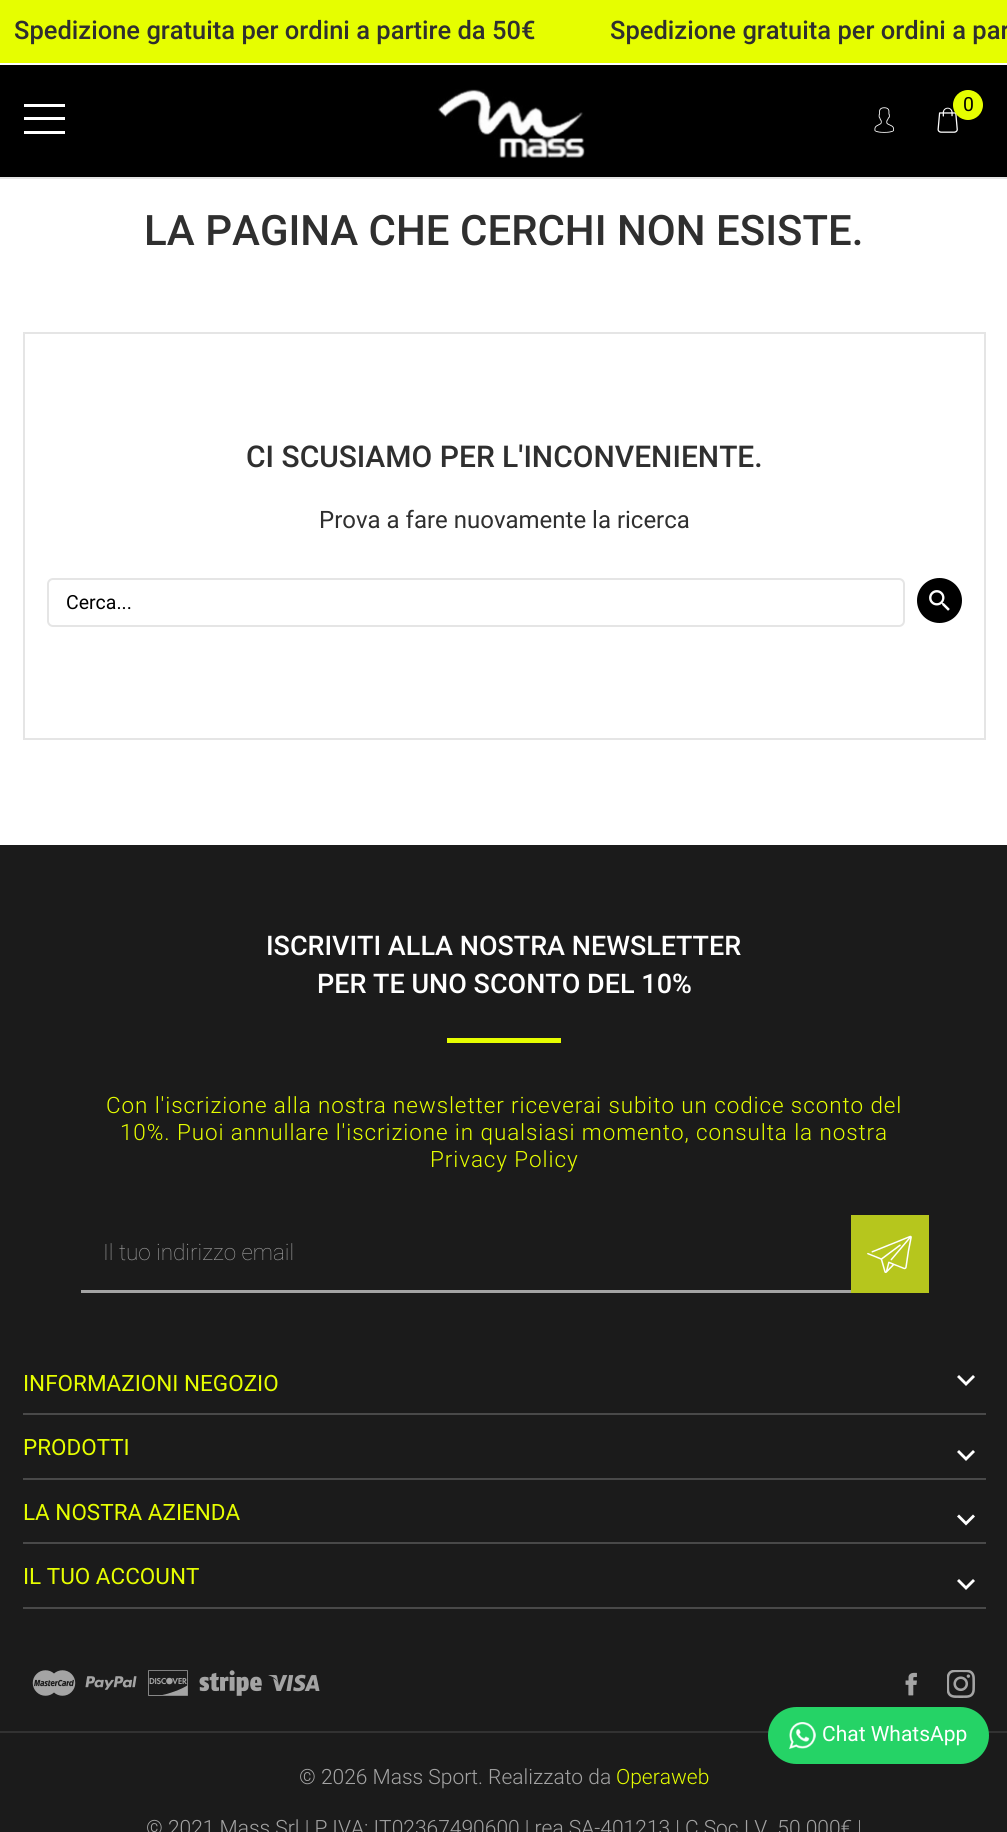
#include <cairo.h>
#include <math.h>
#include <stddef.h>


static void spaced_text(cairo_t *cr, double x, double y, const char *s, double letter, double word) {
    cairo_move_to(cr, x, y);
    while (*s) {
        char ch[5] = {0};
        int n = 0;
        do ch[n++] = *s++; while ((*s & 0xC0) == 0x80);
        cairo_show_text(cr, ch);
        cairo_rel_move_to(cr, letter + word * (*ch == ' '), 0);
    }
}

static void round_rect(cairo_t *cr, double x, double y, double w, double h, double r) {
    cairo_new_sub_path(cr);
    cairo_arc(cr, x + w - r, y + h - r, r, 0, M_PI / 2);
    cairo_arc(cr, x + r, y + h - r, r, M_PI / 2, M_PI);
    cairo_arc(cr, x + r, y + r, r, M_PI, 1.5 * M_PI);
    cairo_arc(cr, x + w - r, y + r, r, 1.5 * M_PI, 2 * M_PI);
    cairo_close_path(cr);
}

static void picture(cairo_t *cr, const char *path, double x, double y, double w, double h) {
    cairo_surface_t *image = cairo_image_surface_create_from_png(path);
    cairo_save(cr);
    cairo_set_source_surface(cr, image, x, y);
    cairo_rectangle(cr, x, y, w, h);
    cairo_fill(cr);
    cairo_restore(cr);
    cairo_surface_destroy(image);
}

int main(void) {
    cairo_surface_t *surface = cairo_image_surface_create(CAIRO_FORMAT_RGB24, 1007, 1832);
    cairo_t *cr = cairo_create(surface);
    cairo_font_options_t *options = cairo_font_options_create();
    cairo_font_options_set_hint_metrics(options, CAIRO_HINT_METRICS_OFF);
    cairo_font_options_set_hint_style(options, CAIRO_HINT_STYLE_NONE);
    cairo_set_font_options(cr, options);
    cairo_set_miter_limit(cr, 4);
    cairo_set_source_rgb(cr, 1, 1, 1);
    cairo_paint(cr);
    cairo_set_source_rgb(cr, 0.902, 0.996, 0);
    cairo_rectangle(cr, 0, 0, 1007, 63);
    cairo_fill(cr);
    cairo_select_font_face(cr, "Roboto Medium", CAIRO_FONT_SLANT_NORMAL, CAIRO_FONT_WEIGHT_NORMAL);
    cairo_set_font_size(cr, 25.5);
    cairo_set_source_rgb(cr, 0.184, 0.184, 0.184);
    cairo_move_to(cr, 14, 39);
    cairo_show_text(cr, "Spedizione gratuita per ordini a partire da 50€");
    cairo_move_to(cr, 610, 39);
    cairo_show_text(cr, "Spedizione gratuita per ordini a par");
    cairo_set_source_rgb(cr, 0, 0, 0);
    cairo_rectangle(cr, 0, 65, 1007, 112);
    cairo_fill(cr);
    cairo_set_source_rgb(cr, 0.898, 0.898, 0.898);
    cairo_rectangle(cr, 0, 177, 1007, 2);
    cairo_fill(cr);
    cairo_set_source_rgb(cr, 1, 1, 1);
    cairo_rectangle(cr, 24, 104, 41, 3);
    cairo_fill(cr);
    cairo_rectangle(cr, 24, 117, 41, 3);
    cairo_fill(cr);
    cairo_rectangle(cr, 24, 131, 41, 3);
    cairo_fill(cr);
    picture(cr, "img1.png", 438, 89, 147, 69);
    picture(cr, "img2.png", 874, 107, 20, 26);
    picture(cr, "img3.png", 937, 107, 21, 26);
    cairo_set_source_rgb(cr, 0.902, 0.996, 0);
    cairo_arc(cr, 968, 105, 15, 0, 2 * M_PI);
    cairo_fill(cr);
    cairo_select_font_face(cr, "Roboto", CAIRO_FONT_SLANT_NORMAL, CAIRO_FONT_WEIGHT_NORMAL);
    cairo_set_font_size(cr, 19.5);
    cairo_set_source_rgb(cr, 0, 0, 0);
    cairo_move_to(cr, 963, 111);
    cairo_show_text(cr, "0");
    cairo_select_font_face(cr, "Roboto Medium", CAIRO_FONT_SLANT_NORMAL, CAIRO_FONT_WEIGHT_NORMAL);
    cairo_set_font_size(cr, 42);
    cairo_set_source_rgb(cr, 0.184, 0.184, 0.184);
    cairo_move_to(cr, 144, 245);
    cairo_show_text(cr, "LA PAGINA CHE CERCHI NON ESISTE.");
    cairo_rectangle(cr, 24, 333, 961, 406);
    cairo_set_source_rgb(cr, 0.898, 0.898, 0.898);
    cairo_stroke(cr);
    cairo_set_font_size(cr, 30);
    cairo_set_source_rgb(cr, 0.184, 0.184, 0.184);
    cairo_move_to(cr, 246, 467);
    cairo_show_text(cr, "CI SCUSIAMO PER L'INCONVENIENTE.");
    cairo_select_font_face(cr, "Roboto", CAIRO_FONT_SLANT_NORMAL, CAIRO_FONT_WEIGHT_NORMAL);
    cairo_set_font_size(cr, 24);
    cairo_move_to(cr, 319, 528);
    cairo_show_text(cr, "Prova a fare nuovamente la ricerca");
    round_rect(cr, 48, 579, 856, 47, 5);
    cairo_set_source_rgb(cr, 0.898, 0.898, 0.898);
    cairo_stroke(cr);
    cairo_set_font_size(cr, 19.5);
    cairo_set_source_rgb(cr, 0, 0, 0);
    cairo_move_to(cr, 66, 609);
    cairo_show_text(cr, "Cerca...");
    cairo_new_path(cr);
    cairo_arc(cr, 939.5, 600.5, 21, 0, 2 * M_PI);
    cairo_fill_preserve(cr);
    cairo_set_line_width(cr, 3);
    cairo_stroke(cr);
    picture(cr, "img4.png", 929, 590, 21, 21);
    cairo_set_source_rgb(cr, 0.106, 0.106, 0.106);
    cairo_rectangle(cr, 0, 845, 1007, 987);
    cairo_fill(cr);
    cairo_select_font_face(cr, "Roboto Medium", CAIRO_FONT_SLANT_NORMAL, CAIRO_FONT_WEIGHT_NORMAL);
    cairo_set_font_size(cr, 27);
    cairo_set_source_rgb(cr, 1, 1, 1);
    cairo_move_to(cr, 266, 955);
    cairo_show_text(cr, "ISCRIVITI ALLA NOSTRA NEWSLETTER");
    cairo_move_to(cr, 317, 993);
    cairo_show_text(cr, "PER TE UNO SCONTO DEL 10%");
    cairo_set_source_rgb(cr, 0.902, 0.996, 0);
    cairo_rectangle(cr, 447, 1038, 114, 5);
    cairo_fill(cr);
    cairo_select_font_face(cr, "Roboto Light", CAIRO_FONT_SLANT_NORMAL, CAIRO_FONT_WEIGHT_NORMAL);
    cairo_set_font_size(cr, 22.5);
    spaced_text(cr, 106, 1113, "Con l'iscrizione alla nostra newsletter riceverai subito un codice sconto del", 0.9, 0);
    spaced_text(cr, 120, 1140, "10%. Puoi annullare l'iscrizione in qualsiasi momento, consulta la nostra", 0.9, 0);
    spaced_text(cr, 430, 1167, "Privacy Policy", 0.9, 0);
    cairo_set_source_rgba(cr, 1, 1, 1, 0.6);
    cairo_new_path(cr);
    cairo_move_to(cr, 928, 1293);
    cairo_line_to(cr, 81, 1293);
    cairo_line_to(cr, 81, 1290);
    cairo_line_to(cr, 927, 1290);
    cairo_close_path(cr);
    cairo_fill(cr);
    cairo_select_font_face(cr, "Roboto Thin", CAIRO_FONT_SLANT_NORMAL, CAIRO_FONT_WEIGHT_NORMAL);
    cairo_set_source_rgb(cr, 0.643, 0.643, 0.643);
    cairo_move_to(cr, 103, 1260);
    cairo_show_text(cr, "Il tuo indirizzo email");
    cairo_set_source_rgb(cr, 0.714, 0.776, 0.114);
    cairo_rectangle(cr, 851, 1215, 78, 78);
    cairo_fill(cr);
    picture(cr, "img5.png", 867, 1235, 45, 38);
    cairo_set_source_rgb(cr, 0.286, 0.286, 0.286);
    cairo_rectangle(cr, 23, 1413, 963, 2);
    cairo_fill(cr);
    cairo_select_font_face(cr, "Roboto", CAIRO_FONT_SLANT_NORMAL, CAIRO_FONT_WEIGHT_NORMAL);
    cairo_set_source_rgb(cr, 0.902, 0.996, 0);
    cairo_move_to(cr, 23, 1391);
    cairo_show_text(cr, "INFORMAZIONI NEGOZIO");
    cairo_set_source_rgb(cr, 1, 1, 1);
    cairo_new_path(cr);
    cairo_move_to(cr, 959, 1375);
    cairo_line_to(cr, 966, 1382);
    cairo_line_to(cr, 973, 1375);
    cairo_line_to(cr, 975, 1377);
    cairo_line_to(cr, 966, 1386);
    cairo_line_to(cr, 957, 1377);
    cairo_close_path(cr);
    cairo_fill(cr);
    cairo_set_source_rgb(cr, 0.286, 0.286, 0.286);
    cairo_rectangle(cr, 23, 1478, 963, 2);
    cairo_fill(cr);
    cairo_set_source_rgb(cr, 0.902, 0.996, 0);
    cairo_move_to(cr, 23, 1455);
    cairo_show_text(cr, "PRODOTTI");
    cairo_set_source_rgb(cr, 1, 1, 1);
    cairo_new_path(cr);
    cairo_move_to(cr, 959, 1450);
    cairo_line_to(cr, 966, 1457);
    cairo_line_to(cr, 973, 1450);
    cairo_line_to(cr, 975, 1452);
    cairo_line_to(cr, 966, 1461);
    cairo_line_to(cr, 957, 1452);
    cairo_close_path(cr);
    cairo_fill(cr);
    cairo_set_source_rgb(cr, 0.286, 0.286, 0.286);
    cairo_rectangle(cr, 23, 1542, 963, 2);
    cairo_fill(cr);
    cairo_set_source_rgb(cr, 0.902, 0.996, 0);
    cairo_move_to(cr, 23, 1520);
    cairo_show_text(cr, "LA NOSTRA AZIENDA");
    cairo_set_source_rgb(cr, 1, 1, 1);
    cairo_new_path(cr);
    cairo_move_to(cr, 959, 1514.5);
    cairo_line_to(cr, 966, 1521.5);
    cairo_line_to(cr, 973, 1514.5);
    cairo_line_to(cr, 975, 1516.5);
    cairo_line_to(cr, 966, 1525.5);
    cairo_line_to(cr, 957, 1516.5);
    cairo_close_path(cr);
    cairo_fill(cr);
    cairo_set_source_rgb(cr, 0.286, 0.286, 0.286);
    cairo_rectangle(cr, 23, 1607, 963, 2);
    cairo_fill(cr);
    cairo_set_source_rgb(cr, 0.902, 0.996, 0);
    cairo_move_to(cr, 23, 1584);
    cairo_show_text(cr, "IL TUO ACCOUNT");
    cairo_set_source_rgb(cr, 1, 1, 1);
    cairo_new_path(cr);
    cairo_move_to(cr, 959, 1579);
    cairo_line_to(cr, 966, 1586);
    cairo_line_to(cr, 973, 1579);
    cairo_line_to(cr, 975, 1581);
    cairo_line_to(cr, 966, 1590);
    cairo_line_to(cr, 957, 1581);
    cairo_close_path(cr);
    cairo_fill(cr);
    picture(cr, "img6.png", 32, 1670, 44, 26);
    picture(cr, "img7.png", 85, 1676, 52, 14);
    picture(cr, "img8.png", 148, 1670, 40, 26);
    picture(cr, "img9.png", 199, 1670, 63, 26);
    picture(cr, "img10.png", 268, 1674, 52, 18);
    picture(cr, "img11.png", 905, 1672, 12, 24);
    picture(cr, "img12.png", 947, 1670, 28, 28);
    cairo_set_source_rgb(cr, 0.196, 0.196, 0.196);
    cairo_rectangle(cr, 0, 1731, 1007, 2);
    cairo_fill(cr);
    cairo_select_font_face(cr, "Roboto Light", CAIRO_FONT_SLANT_NORMAL, CAIRO_FONT_WEIGHT_NORMAL);
    cairo_set_font_size(cr, 21);
    cairo_set_source_rgb(cr, 0.643, 0.643, 0.643);
    cairo_move_to(cr, 299, 1784);
    cairo_show_text(cr, "© 2026 Mass Sport. Realizzato da");
    cairo_set_source_rgb(cr, 0.902, 0.996, 0);
    cairo_move_to(cr, 616, 1784);
    cairo_show_text(cr, "Operaweb");
    cairo_set_source_rgb(cr, 0.643, 0.643, 0.643);
    cairo_move_to(cr, 146, 1835);
    cairo_show_text(cr, "© 2021 Mass Srl | P.IVA: IT02367490600 | rea SA-401213 | C.Soc.I.V. 50.000€ |");
    cairo_set_source_rgb(cr, 0.145, 0.827, 0.4);
    round_rect(cr, 768, 1707, 221, 57, 28.5);
    cairo_fill(cr);
    picture(cr, "img13.png", 789, 1722, 27, 27);
    cairo_select_font_face(cr, "Roboto", CAIRO_FONT_SLANT_NORMAL, CAIRO_FONT_WEIGHT_NORMAL);
    cairo_set_source_rgb(cr, 1, 1, 1);
    cairo_move_to(cr, 822, 1741);
    cairo_show_text(cr, "Chat WhatsApp");
    cairo_surface_write_to_png(surface, "page.png");
    cairo_font_options_destroy(options);
    cairo_destroy(cr);
    cairo_surface_destroy(surface);
    return 0;
}
